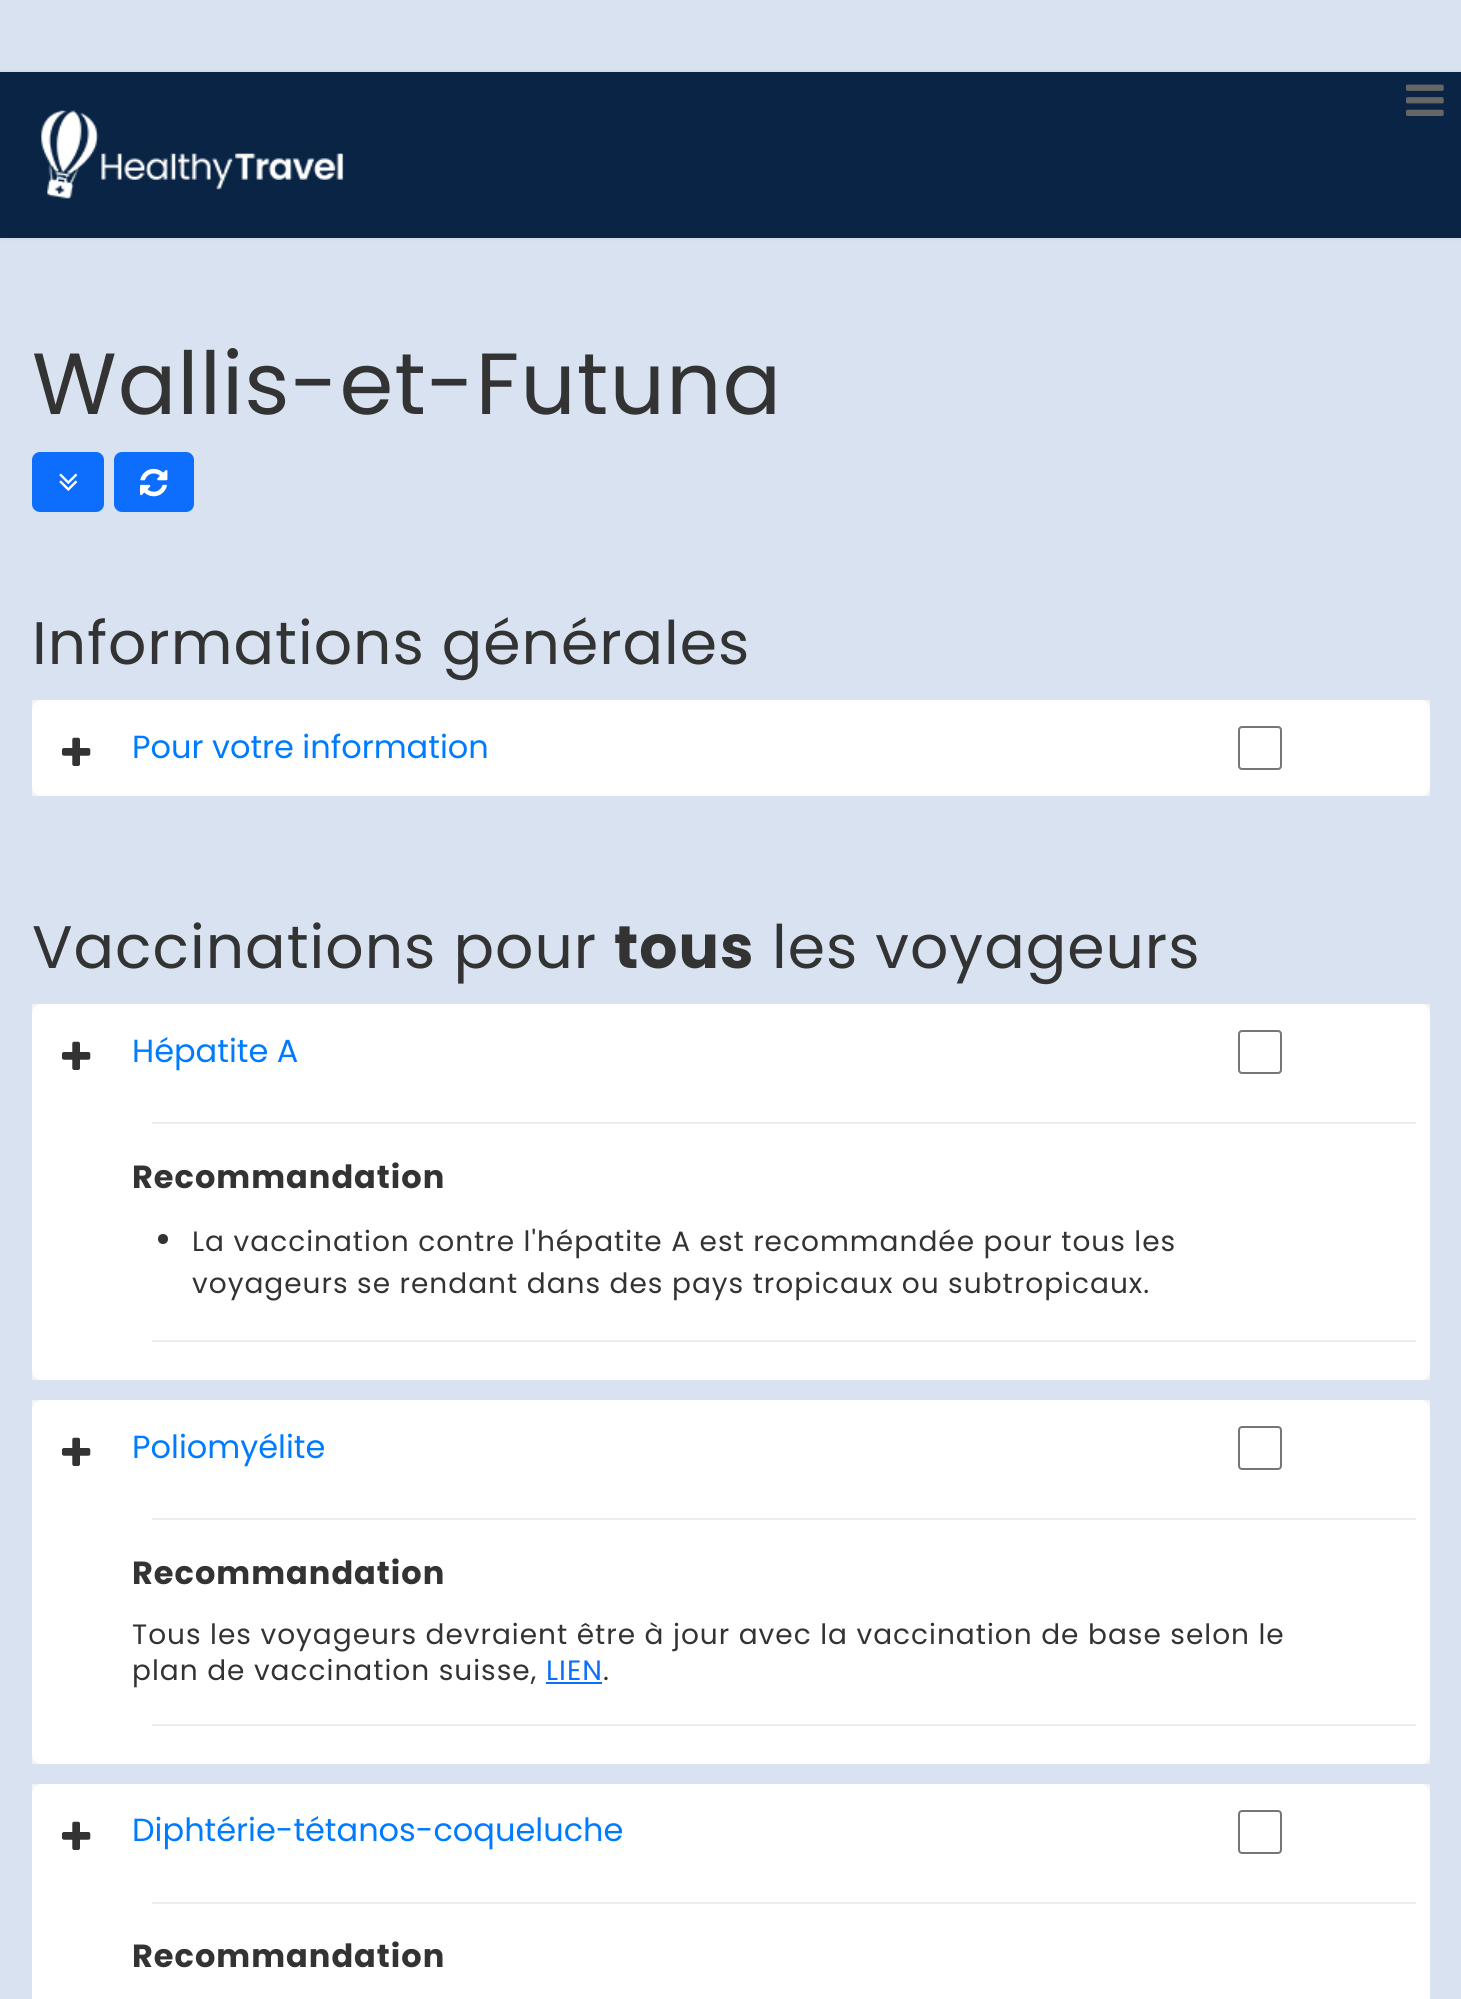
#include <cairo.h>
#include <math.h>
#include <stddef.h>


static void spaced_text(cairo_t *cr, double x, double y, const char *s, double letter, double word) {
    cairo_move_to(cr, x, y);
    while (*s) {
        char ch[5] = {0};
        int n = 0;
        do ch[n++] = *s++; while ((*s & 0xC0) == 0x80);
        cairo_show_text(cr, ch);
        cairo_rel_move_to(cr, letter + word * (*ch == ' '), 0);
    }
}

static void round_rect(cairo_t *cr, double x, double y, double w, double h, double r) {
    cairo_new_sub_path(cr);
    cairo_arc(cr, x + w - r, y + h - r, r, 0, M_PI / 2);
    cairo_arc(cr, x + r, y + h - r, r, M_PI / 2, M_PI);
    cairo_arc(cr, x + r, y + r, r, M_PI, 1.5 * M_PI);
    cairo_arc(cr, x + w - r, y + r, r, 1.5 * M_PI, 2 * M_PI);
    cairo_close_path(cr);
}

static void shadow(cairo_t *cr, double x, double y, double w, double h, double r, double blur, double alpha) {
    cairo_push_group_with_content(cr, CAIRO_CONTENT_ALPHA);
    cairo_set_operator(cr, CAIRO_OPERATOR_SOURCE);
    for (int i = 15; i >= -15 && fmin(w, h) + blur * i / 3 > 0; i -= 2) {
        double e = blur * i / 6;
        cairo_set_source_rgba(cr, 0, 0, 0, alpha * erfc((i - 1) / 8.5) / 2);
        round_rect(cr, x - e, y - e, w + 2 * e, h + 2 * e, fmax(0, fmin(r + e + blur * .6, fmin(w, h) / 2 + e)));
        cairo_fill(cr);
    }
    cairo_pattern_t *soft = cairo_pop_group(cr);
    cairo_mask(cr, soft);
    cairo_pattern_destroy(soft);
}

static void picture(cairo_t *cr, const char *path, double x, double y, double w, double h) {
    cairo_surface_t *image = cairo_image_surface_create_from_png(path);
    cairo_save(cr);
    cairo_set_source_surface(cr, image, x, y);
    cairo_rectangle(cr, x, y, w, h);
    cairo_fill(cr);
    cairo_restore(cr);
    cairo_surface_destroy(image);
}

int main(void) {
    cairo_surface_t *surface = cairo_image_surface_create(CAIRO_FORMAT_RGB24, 1461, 1999);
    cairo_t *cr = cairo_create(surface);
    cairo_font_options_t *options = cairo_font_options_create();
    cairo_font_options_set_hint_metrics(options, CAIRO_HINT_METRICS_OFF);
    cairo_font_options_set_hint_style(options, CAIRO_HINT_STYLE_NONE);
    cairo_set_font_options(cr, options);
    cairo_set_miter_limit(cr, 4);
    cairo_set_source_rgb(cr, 0.847, 0.886, 0.941);
    cairo_paint(cr);
    cairo_set_source_rgb(cr, 0, 0, 0);
    shadow(cr, 0, 72, 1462, 166, 0, 2, 0.1);
    cairo_set_source_rgb(cr, 0.039, 0.141, 0.267);
    cairo_rectangle(cr, 0, 72, 1461, 166);
    cairo_fill(cr);
    picture(cr, "img1.png", 1406, 84, 38, 32);
    picture(cr, "img2.png", 41, 110, 303, 89);
    cairo_select_font_face(cr, "Poppins", CAIRO_FONT_SLANT_NORMAL, CAIRO_FONT_WEIGHT_NORMAL);
    cairo_set_font_size(cr, 86.75);
    cairo_set_source_rgb(cr, 0.2, 0.2, 0.2);
    spaced_text(cr, 32, 414, "Wallis-et-Futuna", 1, 0);
    cairo_set_source_rgb(cr, 0.051, 0.431, 0.992);
    round_rect(cr, 33, 453, 70, 58, 7);
    cairo_fill_preserve(cr);
    cairo_stroke(cr);
    picture(cr, "img3.png", 59, 473, 19, 18);
    round_rect(cr, 115, 453, 78, 58, 7);
    cairo_fill_preserve(cr);
    cairo_stroke(cr);
    picture(cr, "img4.png", 140, 468, 28, 29);
    cairo_set_font_size(cr, 60);
    cairo_set_source_rgb(cr, 0.2, 0.2, 0.2);
    spaced_text(cr, 32, 664, "Informations générales", 1, 0);
    cairo_set_source_rgb(cr, 0.953, 0.953, 0.953);
    cairo_rectangle(cr, 32, 700, 1398, 96);
    cairo_fill(cr);
    cairo_set_source_rgb(cr, 1, 1, 1);
    round_rect(cr, 32, 700, 1398, 96, 10);
    cairo_fill(cr);
    picture(cr, "img5.png", 62, 737, 29, 29);
    cairo_set_font_size(cr, 32);
    cairo_set_source_rgb(cr, 0, 0.482, 1);
    cairo_move_to(cr, 132, 758);
    cairo_show_text(cr, "Pour votre information");
    round_rect(cr, 1239, 727, 42, 42, 3);
    cairo_set_source_rgb(cr, 0.463, 0.463, 0.463);
    cairo_stroke(cr);
    cairo_set_font_size(cr, 60);
    cairo_set_source_rgb(cr, 0.2, 0.2, 0.2);
    spaced_text(cr, 32, 968, "Vaccinations pour", 1, 0);
    cairo_select_font_face(cr, "Poppins", CAIRO_FONT_SLANT_NORMAL, CAIRO_FONT_WEIGHT_BOLD);
    spaced_text(cr, 614, 968, "tous", 1, 0);
    cairo_select_font_face(cr, "Poppins", CAIRO_FONT_SLANT_NORMAL, CAIRO_FONT_WEIGHT_NORMAL);
    spaced_text(cr, 772, 968, "les voyageurs", 1, 0);
    cairo_set_source_rgb(cr, 0.953, 0.953, 0.953);
    cairo_rectangle(cr, 32, 1004, 1398, 376);
    cairo_fill(cr);
    cairo_set_source_rgb(cr, 1, 1, 1);
    round_rect(cr, 32, 1004, 1398, 376, 10);
    cairo_fill(cr);
    picture(cr, "img5.png", 62, 1041, 29, 29);
    cairo_set_font_size(cr, 32);
    cairo_set_source_rgb(cr, 0, 0.482, 1);
    cairo_move_to(cr, 132, 1062);
    cairo_show_text(cr, "Hépatite A");
    round_rect(cr, 1239, 1031, 42, 42, 3);
    cairo_set_source_rgb(cr, 0.463, 0.463, 0.463);
    cairo_stroke(cr);
    cairo_set_source_rgb(cr, 0.922, 0.922, 0.922);
    cairo_rectangle(cr, 152, 1122, 1264, 2);
    cairo_fill(cr);
    cairo_select_font_face(cr, "Poppins", CAIRO_FONT_SLANT_NORMAL, CAIRO_FONT_WEIGHT_BOLD);
    cairo_set_source_rgb(cr, 0.2, 0.2, 0.2);
    spaced_text(cr, 132, 1188, "Recommandation", 1, 0);
    cairo_new_path(cr);
    cairo_arc(cr, 163, 1239, 5, 0, 2 * M_PI);
    cairo_fill(cr);
    cairo_select_font_face(cr, "Poppins", CAIRO_FONT_SLANT_NORMAL, CAIRO_FONT_WEIGHT_NORMAL);
    cairo_set_font_size(cr, 28);
    spaced_text(cr, 192, 1251, "La vaccination contre l'hépatite A est recommandée pour tous les", 1, 0);
    spaced_text(cr, 192, 1293, "voyageurs se rendant dans des pays tropicaux ou subtropicaux.", 1, 0);
    cairo_set_source_rgb(cr, 0.922, 0.922, 0.922);
    cairo_rectangle(cr, 152, 1340, 1264, 2);
    cairo_fill(cr);
    cairo_set_source_rgb(cr, 0.953, 0.953, 0.953);
    cairo_rectangle(cr, 32, 1400, 1398, 364);
    cairo_fill(cr);
    cairo_set_source_rgb(cr, 1, 1, 1);
    round_rect(cr, 32, 1400, 1398, 364, 10);
    cairo_fill(cr);
    picture(cr, "img5.png", 62, 1437, 29, 29);
    cairo_set_font_size(cr, 32);
    cairo_set_source_rgb(cr, 0, 0.482, 1);
    cairo_move_to(cr, 132, 1458);
    cairo_show_text(cr, "Poliomyélite");
    round_rect(cr, 1239, 1427, 42, 42, 3);
    cairo_set_source_rgb(cr, 0.463, 0.463, 0.463);
    cairo_stroke(cr);
    cairo_set_source_rgb(cr, 0.922, 0.922, 0.922);
    cairo_rectangle(cr, 152, 1518, 1264, 2);
    cairo_fill(cr);
    cairo_select_font_face(cr, "Poppins", CAIRO_FONT_SLANT_NORMAL, CAIRO_FONT_WEIGHT_BOLD);
    cairo_set_source_rgb(cr, 0.2, 0.2, 0.2);
    spaced_text(cr, 132, 1584, "Recommandation", 1, 0);
    cairo_select_font_face(cr, "Poppins", CAIRO_FONT_SLANT_NORMAL, CAIRO_FONT_WEIGHT_NORMAL);
    cairo_set_font_size(cr, 28);
    spaced_text(cr, 132, 1644, "Tous les voyageurs devraient être à jour avec la vaccination de base selon le", 1, 0);
    spaced_text(cr, 132, 1680, "plan de vaccination suisse,", 1, 0);
    cairo_set_source_rgb(cr, 0.051, 0.431, 0.992);
    spaced_text(cr, 546, 1680, "LIEN", 1, 0);
    cairo_rectangle(cr, 546, 1682, 56, 2);
    cairo_fill(cr);
    cairo_set_source_rgb(cr, 0.2, 0.2, 0.2);
    spaced_text(cr, 603, 1680, ".", 1, 0);
    cairo_set_source_rgb(cr, 0.922, 0.922, 0.922);
    cairo_rectangle(cr, 152, 1724, 1264, 2);
    cairo_fill(cr);
    cairo_set_source_rgb(cr, 0.953, 0.953, 0.953);
    cairo_rectangle(cr, 32, 1784, 1398, 10);
    cairo_fill(cr);
    cairo_set_source_rgb(cr, 1, 1, 1);
    cairo_new_path(cr);
    cairo_move_to(cr, 42, 1784);
    cairo_line_to(cr, 1420, 1784);
    cairo_curve_to(cr, 1425.5, 1784, 1430, 1788.5, 1430, 1794);
    cairo_line_to(cr, 1430, 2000);
    cairo_line_to(cr, 32, 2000);
    cairo_line_to(cr, 32, 1794);
    cairo_curve_to(cr, 32, 1788.5, 36.5, 1784, 42, 1784);
    cairo_close_path(cr);
    cairo_fill(cr);
    picture(cr, "img5.png", 62, 1821, 29, 29);
    cairo_set_font_size(cr, 32);
    cairo_set_source_rgb(cr, 0, 0.482, 1);
    cairo_move_to(cr, 132, 1841);
    cairo_show_text(cr, "Diphtérie-tétanos-coqueluche");
    round_rect(cr, 1239, 1811, 42, 42, 3);
    cairo_set_source_rgb(cr, 0.463, 0.463, 0.463);
    cairo_stroke(cr);
    cairo_set_source_rgb(cr, 0.922, 0.922, 0.922);
    cairo_rectangle(cr, 152, 1902, 1264, 2);
    cairo_fill(cr);
    cairo_select_font_face(cr, "Poppins", CAIRO_FONT_SLANT_NORMAL, CAIRO_FONT_WEIGHT_BOLD);
    cairo_set_source_rgb(cr, 0.2, 0.2, 0.2);
    spaced_text(cr, 132, 1967, "Recommandation", 1, 0);
    cairo_surface_write_to_png(surface, "page.png");
    cairo_font_options_destroy(options);
    cairo_destroy(cr);
    cairo_surface_destroy(surface);
    return 0;
}
